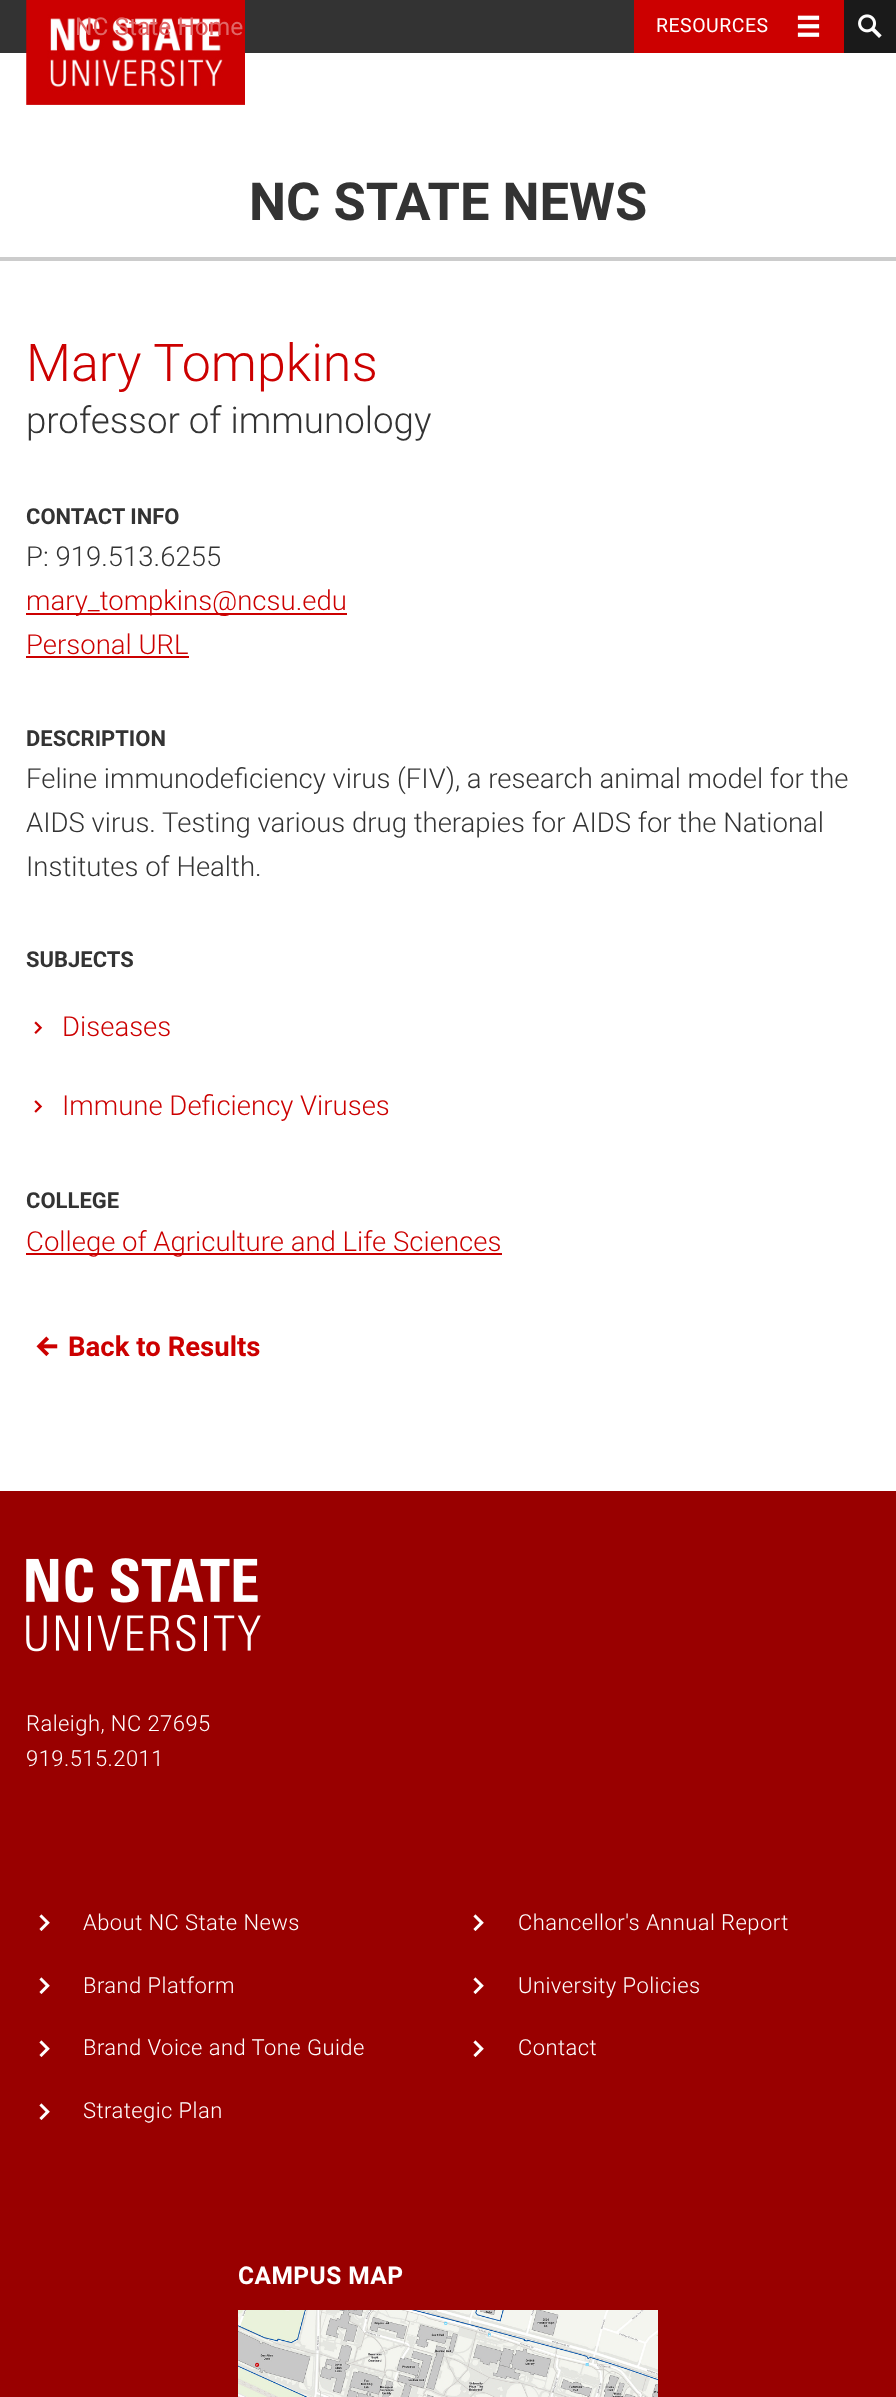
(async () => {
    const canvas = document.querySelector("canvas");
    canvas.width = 896;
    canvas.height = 2397;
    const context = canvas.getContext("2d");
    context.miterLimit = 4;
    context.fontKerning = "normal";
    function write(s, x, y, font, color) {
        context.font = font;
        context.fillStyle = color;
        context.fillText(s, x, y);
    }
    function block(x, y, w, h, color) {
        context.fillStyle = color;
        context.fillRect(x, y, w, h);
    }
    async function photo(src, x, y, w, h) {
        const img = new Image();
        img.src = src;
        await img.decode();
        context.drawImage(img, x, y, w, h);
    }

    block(0, 0, 896, 2397, "rgb(255, 255, 255)");
    block(0, 0, 634, 53, "rgb(51, 51, 51)");
    await photo("media/1.png", 26, 0, 219, 105);
    write("NC State Home", 75, 35, "24.5px Roboto", "rgb(224, 103, 103)");
    block(634, 0, 210, 53, "rgb(204, 0, 0)");
    await photo("media/2.png", 797, 15, 23, 22);
    context.letterSpacing = "0.5px";
    write("RESOURCES", 656, 32, "19.5px Roboto", "rgb(255, 255, 255)");
    block(844, 0, 52, 53, "rgb(26, 26, 26)");
    await photo("media/3.png", 858, 14, 24, 24);
    context.letterSpacing = "0px";
    write("NC STATE NEWS", 249, 220, "bold 52.5px Roboto", "rgb(51, 51, 51)");
    block(0, 257, 896, 4, "rgb(204, 204, 204)");
    write("Mary Tompkins", 26, 381, "300 52px Roboto", "rgb(204, 0, 0)");
    write("professor of immunology", 26, 433, "300 36.75px Roboto", "rgb(51, 51, 51)");
    write("CONTACT INFO", 26, 524, "bold 22px Roboto", "rgb(51, 51, 51)");
    write("P: 919.513.6255", 26, 566, "300 27.55px Roboto", "rgb(51, 51, 51)");
    block(26, 613, 321, 2, "rgb(204, 0, 0)");
    write("mary_tompkins@ncsu.edu", 26, 610, "300 27.55px Roboto", "rgb(204, 0, 0)");
    write("Personal URL", 26, 654, "300 27.55px Roboto", "rgb(204, 0, 0)");
    block(26, 656, 163, 2, "rgb(204, 0, 0)");
    write("DESCRIPTION", 26, 746, "bold 22px Roboto", "rgb(51, 51, 51)");
    write("Feline immunodeficiency virus (FIV), a research animal model for the", 26, 788, "300 27.55px Roboto", "rgb(51, 51, 51)");
    write("AIDS virus. Testing various drug therapies for AIDS for the National", 26, 832, "300 27.55px Roboto", "rgb(51, 51, 51)");
    write("Institutes of Health.", 26, 876, "300 27.55px Roboto", "rgb(51, 51, 51)");
    write("SUBJECTS", 26, 967, "bold 22px Roboto", "rgb(51, 51, 51)");
    await photo("media/4.png", 34, 1021, 9, 13);
    write("Diseases", 62, 1036, "300 27.55px Roboto", "rgb(204, 0, 0)");
    await photo("media/5.png", 34, 1100, 9, 13);
    write("Immune Deficiency Viruses", 62, 1115, "300 27.55px Roboto", "rgb(204, 0, 0)");
    write("COLLEGE", 26, 1208, "bold 22px Roboto", "rgb(51, 51, 51)");
    block(26, 1253, 476, 2, "rgb(204, 0, 0)");
    write("College of Agriculture and Life Sciences", 26, 1251, "300 27.55px Roboto", "rgb(204, 0, 0)");
    await photo("media/6.png", 36, 1336, 22, 21);
    write("Back to Results", 68, 1356, "bold 27.55px Roboto", "rgb(204, 0, 0)");
    block(0, 1491, 896, 906, "rgb(153, 0, 0)");
    await photo("media/7.png", 26, 1558, 235, 94);
    context.letterSpacing = "0.45px";
    write("Raleigh, NC 27695", 26, 1731, "300 22px Roboto", "rgb(255, 255, 255)");
    write("919.515.2011", 26, 1766, "300 22px Roboto", "rgb(255, 255, 255)");
    await photo("media/8.png", 39, 1914, 11, 17);
    write("About NC State News", 83, 1930, "300 22px Roboto", "rgb(255, 255, 255)");
    await photo("media/8.png", 39, 1977, 11, 17);
    write("Brand Platform", 83, 1993, "300 22px Roboto", "rgb(255, 255, 255)");
    await photo("media/8.png", 39, 2040, 11, 17);
    write("Brand Voice and Tone Guide", 83, 2055, "300 22px Roboto", "rgb(255, 255, 255)");
    await photo("media/8.png", 39, 2103, 11, 17);
    write("Strategic Plan", 83, 2118, "300 22px Roboto", "rgb(255, 255, 255)");
    await photo("media/8.png", 473, 1914, 11, 17);
    write("Chancellor's Annual Report", 518, 1930, "300 22px Roboto", "rgb(255, 255, 255)");
    await photo("media/8.png", 473, 1977, 11, 17);
    write("University Policies", 518, 1993, "300 22px Roboto", "rgb(255, 255, 255)");
    await photo("media/8.png", 473, 2040, 11, 17);
    write("Contact", 518, 2055, "300 22px Roboto", "rgb(255, 255, 255)");
    write("CAMPUS MAP", 238, 2284, "bold 24.5px Roboto", "rgb(255, 255, 255)");
    await photo("media/9.png", 238, 2310, 420, 87);
})();
